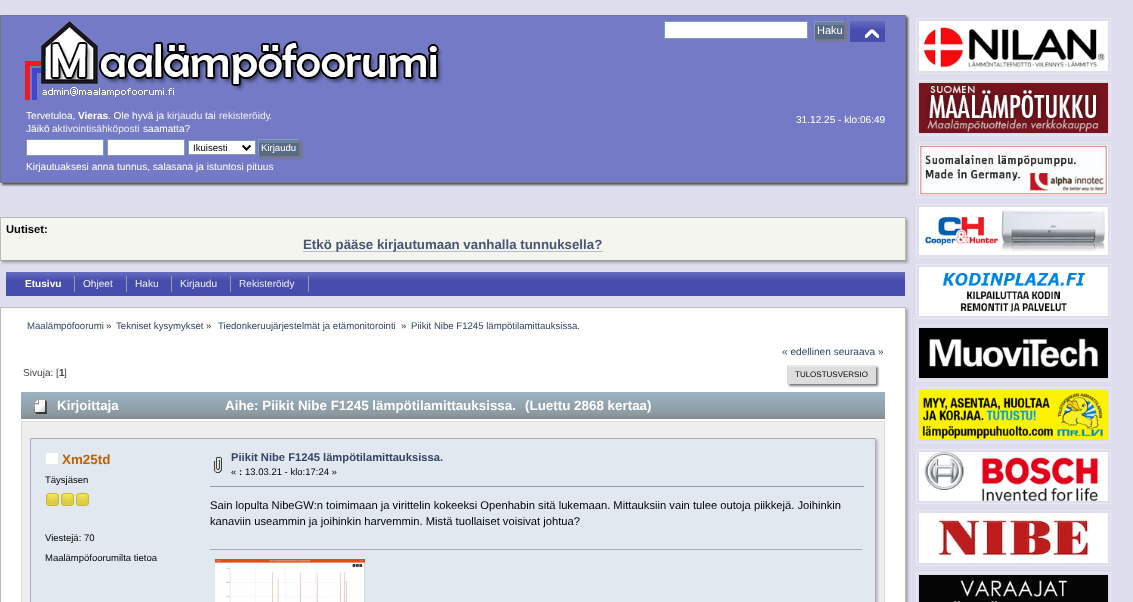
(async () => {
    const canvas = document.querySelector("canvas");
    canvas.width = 1133;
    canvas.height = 602;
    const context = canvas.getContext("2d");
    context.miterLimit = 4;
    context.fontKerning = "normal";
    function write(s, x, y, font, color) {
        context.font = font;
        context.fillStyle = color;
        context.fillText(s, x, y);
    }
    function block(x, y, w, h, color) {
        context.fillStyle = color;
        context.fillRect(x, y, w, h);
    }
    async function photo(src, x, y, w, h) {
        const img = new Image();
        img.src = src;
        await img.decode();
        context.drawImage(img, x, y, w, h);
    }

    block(0, 0, 1133, 602, "rgb(221, 221, 238)");
    context.fillStyle = "rgb(85, 85, 85)";
    context.filter = "blur(1px)";
    context.beginPath();
    context.rect(2, 17, 906, 168);
    context.fill();
    context.filter = "none";
    context.fillStyle = "rgb(116, 122, 197)";
    context.beginPath();
    context.rect(0.5, 15.5, 905, 167);
    context.fill();
    context.strokeStyle = "rgb(119, 119, 119)";
    context.stroke();
    await photo("media/1.png", 25, 21, 418, 79);
    context.fillStyle = "rgb(255, 255, 255)";
    context.beginPath();
    context.rect(664.5, 21.5, 143, 17);
    context.fill();
    context.strokeStyle = "rgb(127, 157, 185)";
    context.stroke();
    await photo("media/2.png", 850, 21, 35, 21);
    context.fillStyle = "rgb(120, 120, 120)";
    context.filter = "blur(1px)";
    context.beginPath();
    context.rect(816, 23, 31, 18);
    context.fill();
    context.filter = "none";
    block(815, 25, 29, 13, "rgb(89, 107, 132)");
    block(815, 22, 30, 3, "rgb(108, 129, 159)");
    block(814, 21, 31, 1, "rgb(127, 157, 185)");
    block(844, 21, 1, 18, "rgb(105, 123, 148)");
    block(814, 38, 31, 1, "rgb(89, 107, 132)");
    block(814, 21, 1, 18, "rgb(127, 157, 185)");
    write("Haku", 817, 34, "11px Liberation Sans", "rgb(255, 255, 255)");
    await photo("media/3.png", 865, 29, 14, 9);
    write("Tervetuloa,", 26, 119, "10.1px Liberation Sans", "rgb(255, 255, 255)");
    write("Vieras", 78, 119, "bold 10.1px Liberation Sans", "rgb(255, 255, 255)");
    write(". Ole hyvä ja", 108, 119, "10.1px Liberation Sans", "rgb(255, 255, 255)");
    write("kirjaudu", 167, 119, "10.1px Liberation Sans", "rgb(238, 238, 238)");
    write("tai", 205, 119, "10.1px Liberation Sans", "rgb(255, 255, 255)");
    write("rekisteröidy", 219, 119, "10.1px Liberation Sans", "rgb(238, 238, 238)");
    write(".", 269, 119, "10.1px Liberation Sans", "rgb(255, 255, 255)");
    write("Jäikö", 26, 132, "10.1px Liberation Sans", "rgb(255, 255, 255)");
    write("aktivointisähköposti", 52, 132, "10.1px Liberation Sans", "rgb(238, 238, 238)");
    write("saamatta?", 143, 132, "10.1px Liberation Sans", "rgb(255, 255, 255)");
    context.beginPath();
    context.rect(26.5, 139.5, 77, 16);
    context.fill();
    context.stroke();
    context.beginPath();
    context.rect(107.5, 139.5, 77, 16);
    context.fill();
    context.stroke();
    context.beginPath();
    context.rect(188.5, 140.5, 67, 14);
    context.fill();
    context.stroke();
    context.beginPath();
    context.moveTo(242.5, 145.5);
    context.lineTo(246.5, 149.5);
    context.lineTo(250.5, 145.5);
    context.strokeStyle = "rgb(0, 0, 0)";
    context.lineWidth = 2;
    context.stroke();
    write("Ikuisesti", 193, 151, "9.6px Liberation Sans", "rgb(0, 0, 0)");
    context.fillStyle = "rgb(120, 120, 120)";
    context.filter = "blur(1px)";
    context.beginPath();
    context.rect(260, 141, 42, 17);
    context.fill();
    context.filter = "none";
    block(259, 143, 40, 12, "rgb(89, 107, 132)");
    block(259, 140, 41, 3, "rgb(108, 129, 159)");
    block(258, 139, 42, 1, "rgb(127, 157, 185)");
    block(299, 139, 1, 17, "rgb(105, 123, 148)");
    block(258, 155, 42, 1, "rgb(89, 107, 132)");
    block(258, 139, 1, 17, "rgb(127, 157, 185)");
    write("Kirjaudu", 261, 151, "9.6px Liberation Sans", "rgb(255, 255, 255)");
    write("Kirjautuaksesi anna tunnus, salasana ja istuntosi pituus", 26, 170, "10.1px Liberation Sans", "rgb(255, 255, 255)");
    write("31.12.25 - klo:06:49", 796, 123, "10.1px Liberation Sans", "rgb(255, 255, 255)");
    context.fillStyle = "rgb(170, 170, 170)";
    context.filter = "blur(1px)";
    context.beginPath();
    context.rect(2, 219, 906, 44);
    context.fill();
    context.filter = "none";
    block(1, 218, 904, 42, "rgb(245, 245, 240)");
    block(0, 217, 906, 1, "rgb(187, 187, 187)");
    block(905, 217, 1, 44, "rgb(187, 187, 187)");
    block(0, 260, 906, 1, "rgb(153, 153, 153)");
    block(0, 217, 1, 44, "rgb(187, 187, 187)");
    write("Uutiset:", 6, 233, "bold 11.2px Liberation Sans", "rgb(0, 0, 0)");
    block(303, 251, 300, 1, "rgb(176, 188, 210)");
    write("Etkö pääse kirjautumaan vanhalla tunnuksella?", 303, 249, "bold 13.3px Liberation Sans", "rgb(70, 86, 116)");
    block(6, 280, 899, 16, "rgb(70, 77, 172)");
    await photo("media/4.png", 6, 272, 899, 8);
    block(74, 276, 1, 16, "rgb(153, 153, 170)");
    write("Etusivu", 25, 287, "bold 10.1px Liberation Sans", "rgb(255, 255, 255)");
    block(126, 276, 1, 16, "rgb(153, 153, 170)");
    write("Ohjeet", 83, 287, "10.1px Liberation Sans", "rgb(238, 238, 238)");
    block(171, 276, 1, 16, "rgb(153, 153, 170)");
    write("Haku", 135, 287, "10.1px Liberation Sans", "rgb(238, 238, 238)");
    block(230, 276, 1, 16, "rgb(153, 153, 170)");
    write("Kirjaudu", 180, 287, "10.1px Liberation Sans", "rgb(238, 238, 238)");
    block(308, 276, 1, 16, "rgb(153, 153, 170)");
    write("Rekisteröidy", 239, 287, "10.1px Liberation Sans", "rgb(238, 238, 238)");
    context.fillStyle = "rgb(170, 170, 170)";
    context.filter = "blur(1px)";
    context.beginPath();
    context.rect(2, 309, 906, 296);
    context.fill();
    context.filter = "none";
    block(1, 308, 904, 294, "rgb(255, 255, 255)");
    block(0, 307, 906, 1, "rgb(187, 187, 187)");
    block(905, 307, 1, 295, "rgb(187, 187, 187)");
    block(0, 307, 1, 295, "rgb(187, 187, 187)");
    write("Maalämpöfoorumi", 27, 329, "9.6px Liberation Sans", "rgb(51, 68, 102)");
    write("»", 106, 329, "9.6px Liberation Sans", "rgb(68, 68, 68)");
    write("Tekniset kysymykset", 116, 329, "9.6px Liberation Sans", "rgb(51, 68, 102)");
    write("»", 206, 329, "9.6px Liberation Sans", "rgb(68, 68, 68)");
    write("Tiedonkeruujärjestelmät ja etämonitorointi", 218, 329, "9.6px Liberation Sans", "rgb(51, 68, 102)");
    write("»", 401, 329, "9.6px Liberation Sans", "rgb(68, 68, 68)");
    write("Piikit Nibe F1245 lämpötilamittauksissa.", 411, 329, "9.6px Liberation Sans", "rgb(51, 68, 102)");
    write("« edellinen seuraava »", 782, 355, "10.1px Liberation Sans", "rgb(51, 68, 102)");
    write("Sivuja: [", 23, 376, "10.1px Liberation Sans", "rgb(68, 68, 68)");
    write("1", 59, 376, "bold 10.1px Liberation Sans", "rgb(68, 68, 68)");
    write("]", 64, 376, "10.1px Liberation Sans", "rgb(68, 68, 68)");
    context.fillStyle = "rgb(120, 120, 120)";
    context.filter = "blur(1px)";
    context.beginPath();
    context.rect(789, 367, 89, 19);
    context.fill();
    context.filter = "none";
    block(787, 365, 89, 2, "rgb(232, 232, 232)");
    block(787, 367, 89, 17, "rgb(221, 221, 221)");
    write("TULOSTUSVERSIO", 795, 377, "8px Liberation Sans", "rgb(0, 0, 0)");
    await photo("media/5.png", 21, 392, 864, 27);
    await photo("media/6.png", 34, 399, 13, 15);
    write("Kirjoittaja", 57, 410, "bold 13.4px Liberation Sans", "rgb(255, 255, 255)");
    write("Aihe: Piikit Nibe F1245 lämpötilamittauksissa.", 225, 410, "bold 13.4px Liberation Sans", "rgb(255, 255, 255)");
    write("(Luettu 2868 kertaa)", 525, 410, "bold 13.4px Liberation Sans", "rgb(255, 255, 255)");
    context.fillStyle = "rgb(238, 238, 238)";
    context.beginPath();
    context.rect(21.5, 421.5, 863, 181);
    context.fill();
    context.strokeStyle = "rgb(221, 221, 221)";
    context.lineWidth = 1;
    context.stroke();
    context.fillStyle = "rgb(187, 187, 204)";
    context.filter = "blur(1px)";
    context.beginPath();
    context.rect(32, 440, 846, 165);
    context.fill();
    context.filter = "none";
    context.fillStyle = "rgb(226, 232, 240)";
    context.beginPath();
    context.rect(30.5, 438.5, 845, 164);
    context.fill();
    context.strokeStyle = "rgb(170, 170, 187)";
    context.stroke();
    block(46, 453, 12, 11, "rgb(255, 255, 255)");
    write("Xm25td", 62, 464, "bold 13.4px Liberation Sans", "rgb(192, 96, 2)");
    write("Täysjäsen", 45, 483, "9.5px Liberation Sans", "rgb(0, 0, 0)");
    await photo("media/7.png", 46, 493, 13, 13);
    await photo("media/7.png", 61, 493, 13, 13);
    await photo("media/7.png", 76, 493, 13, 13);
    write("Viestejä: 70", 45, 541, "9.5px Liberation Sans", "rgb(0, 0, 0)");
    write("Maalämpöfoorumilta tietoa", 45, 561, "9.5px Liberation Sans", "rgb(0, 0, 0)");
    await photo("media/8.png", 213, 456, 9, 17);
    write("Piikit Nibe F1245 lämpötilamittauksissa.", 231, 461, "bold 11.2px Liberation Sans", "rgb(51, 68, 102)");
    write("«", 231, 475, "9.5px Liberation Sans", "rgb(0, 0, 0)");
    write(":", 239, 475, "bold 9.5px Liberation Sans", "rgb(0, 0, 0)");
    write("13.03.21 - klo:17:24 »", 245, 475, "9.5px Liberation Sans", "rgb(0, 0, 0)");
    block(210, 486, 654, 1, "rgb(153, 153, 170)");
    write("Sain lopulta NibeGW:n toimimaan ja virittelin kokeeksi Openhabin sitä lukemaan. Mittauksiin vain tulee outoja piikkejä. Joihinkin", 210, 509, "11.2px Liberation Sans", "rgb(0, 0, 0)");
    write("kanaviin useammin ja joihinkin harvemmin. Mistä tuollaiset voisivat johtua?", 210, 525, "11.2px Liberation Sans", "rgb(0, 0, 0)");
    block(210, 549, 652, 1, "rgb(170, 170, 170)");
    await photo("media/9.png", 215, 559, 150, 43);
    context.strokeStyle = "rgb(234, 234, 234)";
    context.strokeRect(916.5, 18.5, 194, 55);
    await photo("media/10.png", 919, 21, 189, 50);
    context.strokeRect(916.5, 80.5, 194, 55);
    await photo("media/11.png", 919, 83, 189, 50);
    context.strokeRect(916.5, 142.5, 194, 55);
    await photo("media/12.png", 919, 145, 189, 50);
    context.strokeRect(916.5, 204.5, 194, 53);
    await photo("media/13.png", 919, 207, 189, 48);
    context.strokeRect(916.5, 264.5, 194, 54);
    await photo("media/14.png", 919, 267, 189, 49);
    context.strokeRect(916.5, 325.5, 194, 55);
    await photo("media/15.png", 919, 328, 189, 50);
    context.strokeRect(916.5, 387.5, 194, 55);
    await photo("media/16.png", 919, 390, 189, 50);
    context.strokeRect(916.5, 449.5, 194, 54);
    await photo("media/17.png", 919, 452, 189, 49);
    context.strokeRect(916.5, 510.5, 194, 55);
    await photo("media/18.png", 919, 513, 189, 50);
    context.strokeRect(916.5, 572.5, 194, 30);
    await photo("media/19.png", 919, 575, 189, 27);
})();
